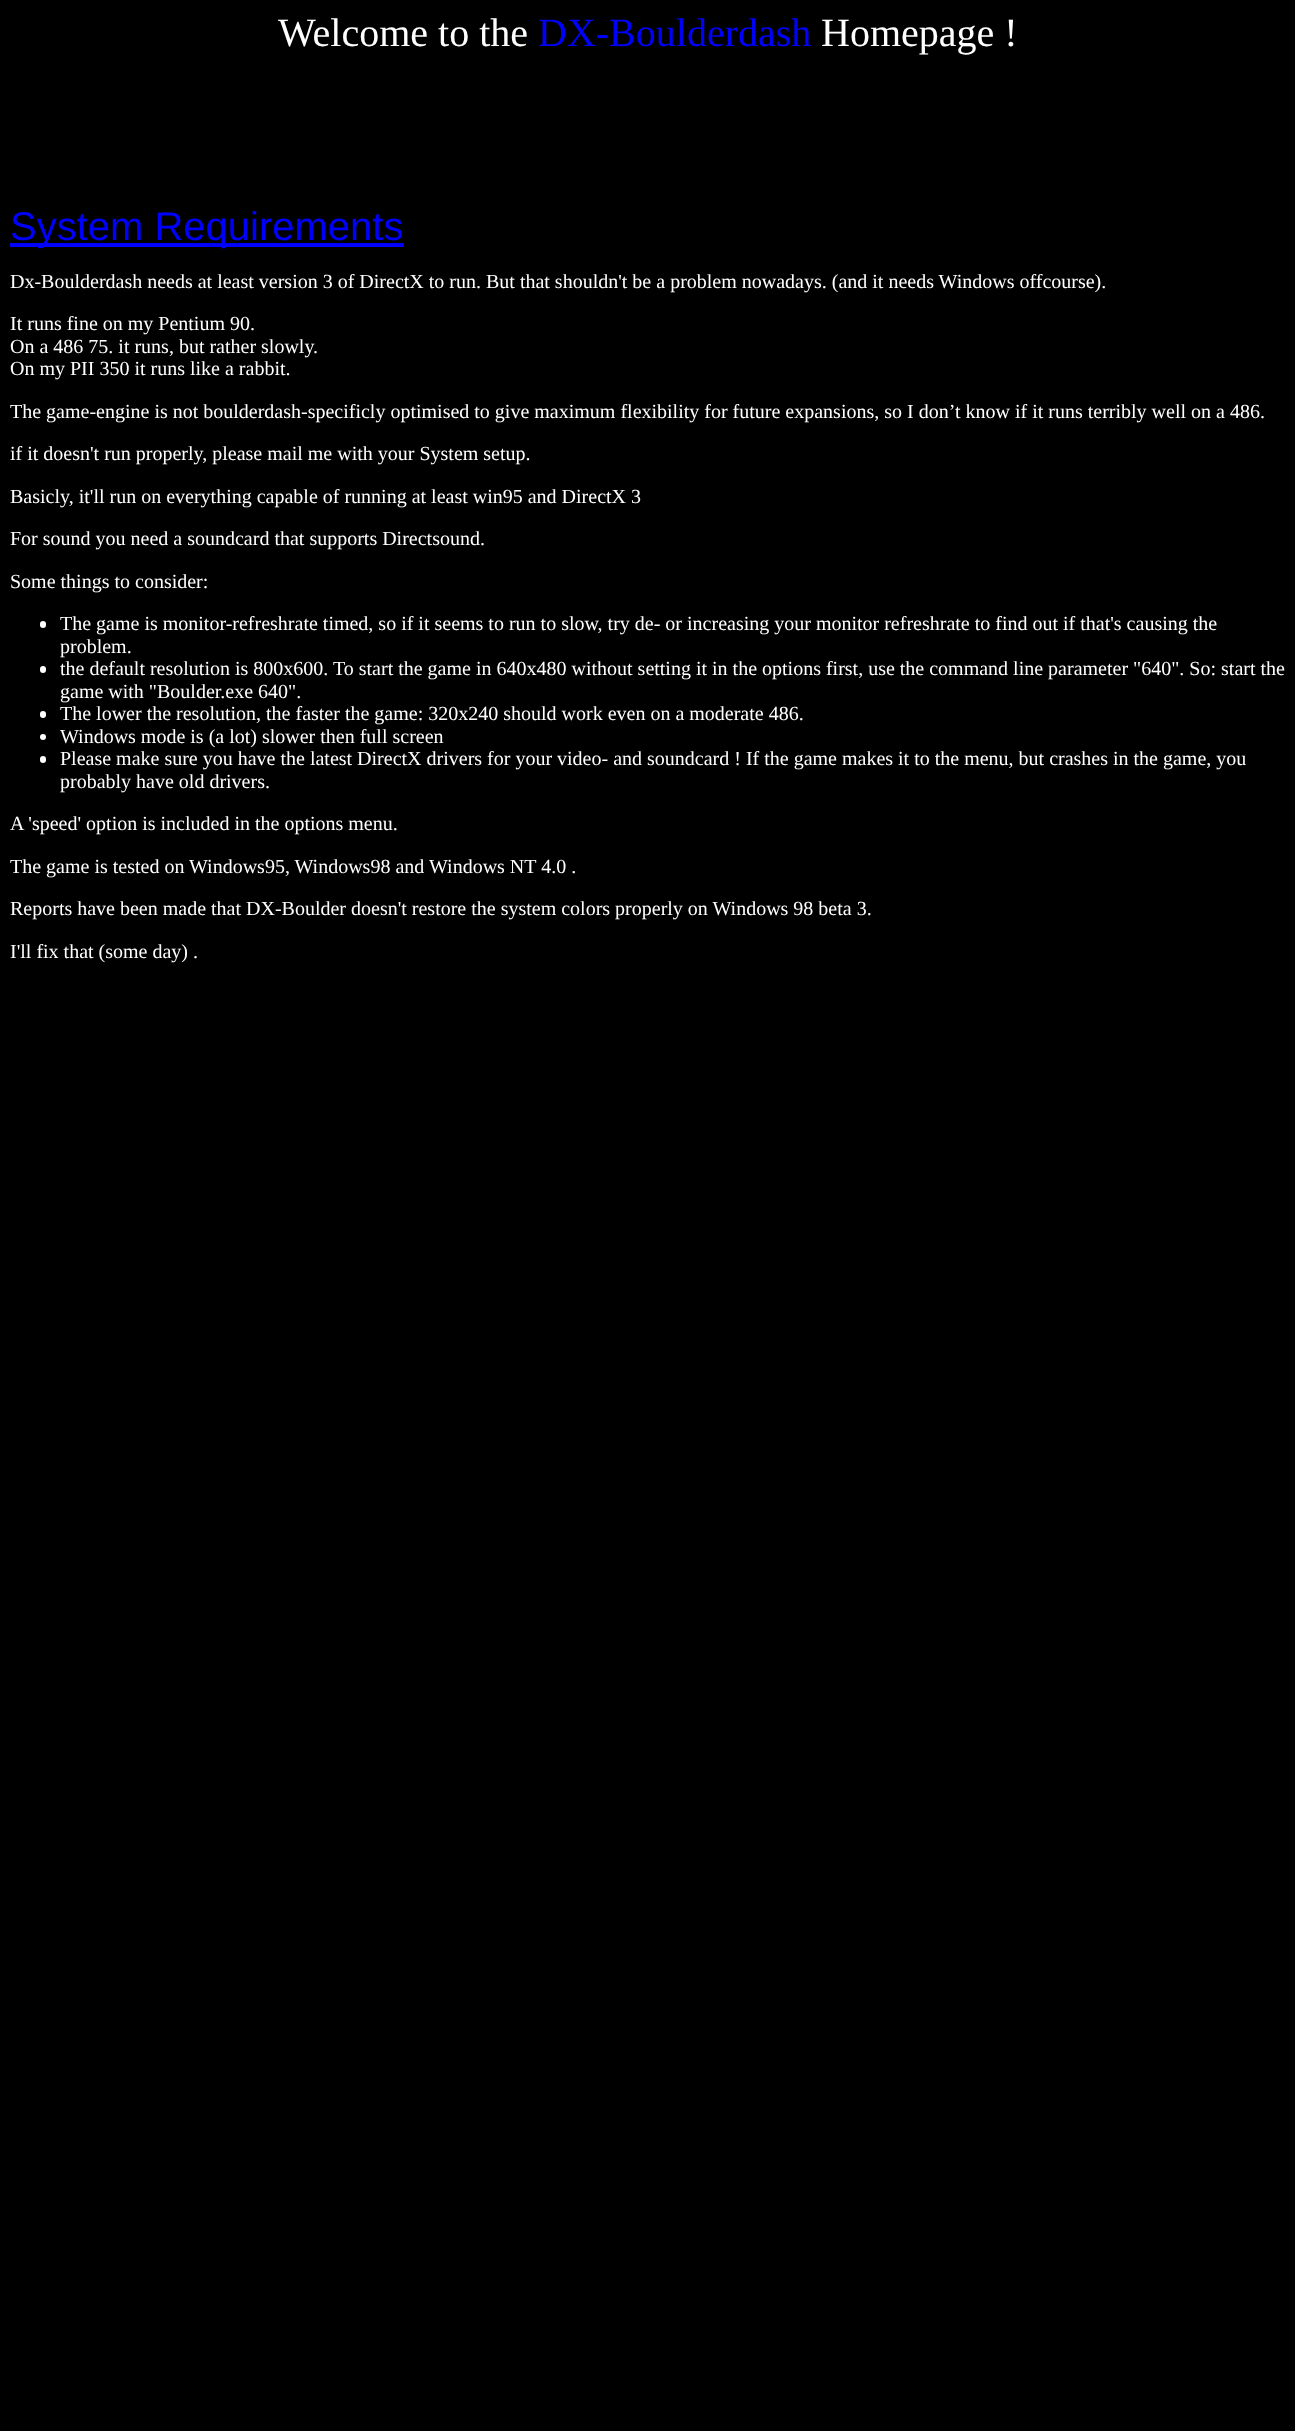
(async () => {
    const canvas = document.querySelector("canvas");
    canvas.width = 1295;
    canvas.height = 2431;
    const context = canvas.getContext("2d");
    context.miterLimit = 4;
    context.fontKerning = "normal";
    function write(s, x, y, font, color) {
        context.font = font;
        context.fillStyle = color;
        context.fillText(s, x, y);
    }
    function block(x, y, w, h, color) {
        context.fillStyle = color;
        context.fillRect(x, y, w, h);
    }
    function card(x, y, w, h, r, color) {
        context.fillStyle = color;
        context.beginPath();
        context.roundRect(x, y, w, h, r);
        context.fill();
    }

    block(0, 0, 1295, 2431, "rgb(0, 0, 0)");
    write("Welcome to the", 278, 46, "40px Liberation Serif", "rgb(255, 255, 255)");
    write("DX-Boulderdash", 538, 46, "40px Liberation Serif", "rgb(0, 0, 255)");
    write("Homepage !", 821, 46, "40px Liberation Serif", "rgb(255, 255, 255)");
    block(10, 243, 394, 4, "rgb(0, 0, 255)");
    write("System Requirements", 10, 240, "40px Liberation Sans", "rgb(0, 0, 255)");
    write("Dx-Boulderdash needs at least version 3 of DirectX to run. But that shouldn't be a problem nowadays. (and it needs Windows offcourse).", 10, 288, "20px Liberation Serif", "rgb(255, 255, 255)");
    write("It runs fine on my Pentium 90.", 10, 330, "20px Liberation Serif", "rgb(255, 255, 255)");
    write("On a 486 75. it runs, but rather slowly.", 10, 353, "20px Liberation Serif", "rgb(255, 255, 255)");
    write("On my PII 350 it runs like a rabbit.", 10, 375, "20px Liberation Serif", "rgb(255, 255, 255)");
    write("The game-engine is not boulderdash-specificly optimised to give maximum flexibility for future expansions, so I don’t know if it runs terribly well on a 486.", 10, 418, "20px Liberation Serif", "rgb(255, 255, 255)");
    write("if it doesn't run properly, please mail me with your System setup.", 10, 460, "20px Liberation Serif", "rgb(255, 255, 255)");
    write("Basicly, it'll run on everything capable of running at least win95 and DirectX 3", 10, 503, "20px Liberation Serif", "rgb(255, 255, 255)");
    write("For sound you need a soundcard that supports Directsound.", 10, 545, "20px Liberation Serif", "rgb(255, 255, 255)");
    write("Some things to consider:", 10, 588, "20px Liberation Serif", "rgb(255, 255, 255)");
    card(40, 621, 6, 7, 3, "rgb(255, 255, 255)");
    write("The game is monitor-refreshrate timed, so if it seems to run to slow, try de- or increasing your monitor refreshrate to find out if that's causing the", 60, 630, "20px Liberation Serif", "rgb(255, 255, 255)");
    write("problem.", 60, 653, "20px Liberation Serif", "rgb(255, 255, 255)");
    card(40, 666, 6, 7, 3, "rgb(255, 255, 255)");
    write("the default resolution is 800x600. To start the game in 640x480 without setting it in the options first, use the command line parameter \"640\". So: start the", 60, 675, "20px Liberation Serif", "rgb(255, 255, 255)");
    write("game with \"Boulder.exe 640\".", 60, 698, "20px Liberation Serif", "rgb(255, 255, 255)");
    card(40, 711, 6, 7, 3, "rgb(255, 255, 255)");
    write("The lower the resolution, the faster the game: 320x240 should work even on a moderate 486.", 60, 720, "20px Liberation Serif", "rgb(255, 255, 255)");
    context.beginPath();
    context.arc(43, 737, 3, 0, Math.PI * 2);
    context.fill();
    write("Windows mode is (a lot) slower then full screen", 60, 743, "20px Liberation Serif", "rgb(255, 255, 255)");
    card(40, 756, 6, 7, 3, "rgb(255, 255, 255)");
    write("Please make sure you have the latest DirectX drivers for your video- and soundcard ! If the game makes it to the menu, but crashes in the game, you", 60, 765, "20px Liberation Serif", "rgb(255, 255, 255)");
    write("probably have old drivers.", 60, 788, "20px Liberation Serif", "rgb(255, 255, 255)");
    write("A 'speed' option is included in the options menu.", 10, 830, "20px Liberation Serif", "rgb(255, 255, 255)");
    write("The game is tested on Windows95, Windows98 and", 10, 873, "20px Liberation Serif", "rgb(255, 255, 255)");
    write("Windows NT 4.0 .", 429, 873, "20px Liberation Serif", "rgb(255, 255, 255)");
    write("Reports have been made that DX-Boulder doesn't restore the system colors properly on Windows 98 beta 3.", 10, 915, "20px Liberation Serif", "rgb(255, 255, 255)");
    write("I'll fix that (some day) .", 10, 958, "20px Liberation Serif", "rgb(255, 255, 255)");
})();
